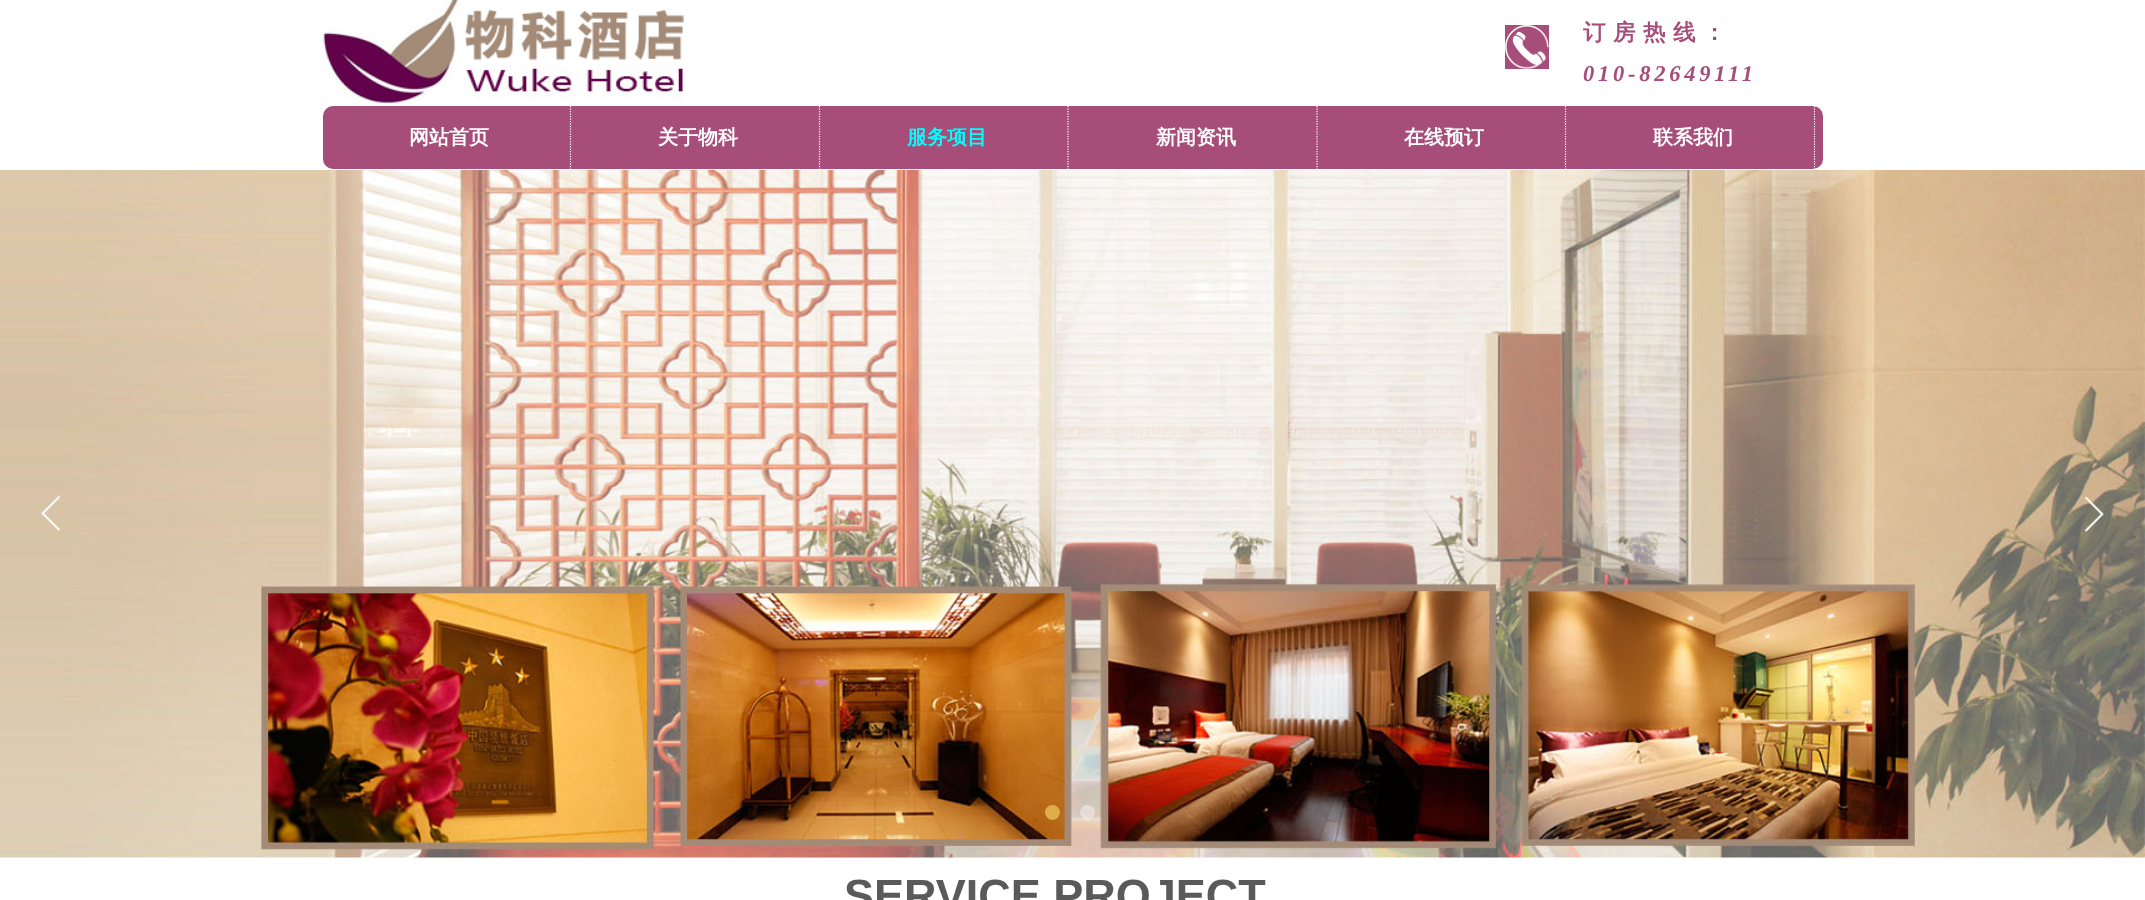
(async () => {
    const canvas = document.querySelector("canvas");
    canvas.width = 2145;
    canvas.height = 900;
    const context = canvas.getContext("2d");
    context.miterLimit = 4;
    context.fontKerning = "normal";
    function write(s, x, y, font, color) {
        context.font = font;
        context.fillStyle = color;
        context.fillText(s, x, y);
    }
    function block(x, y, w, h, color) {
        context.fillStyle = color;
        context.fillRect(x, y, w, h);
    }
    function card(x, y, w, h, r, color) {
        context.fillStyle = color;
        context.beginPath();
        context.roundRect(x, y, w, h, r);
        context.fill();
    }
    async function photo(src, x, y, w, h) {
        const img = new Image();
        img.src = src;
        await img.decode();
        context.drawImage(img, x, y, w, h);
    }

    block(0, 0, 2145, 900, "rgb(255, 255, 255)");
    await photo("media/1.png", 323, 0, 367, 104);
    block(1505, 25, 44, 44, "rgb(166, 77, 121)");
    await photo("media/2.png", 1505, 25, 44, 44);
    context.letterSpacing = "7.5px";
    write("订房热线：", 1583, 40, "bold 22.5px WenQuanYi Zen Hei", "rgb(166, 77, 121)");
    context.letterSpacing = "3.75px";
    write("010-82649111", 1583, 81, "italic bold 22.5px Liberation Serif", "rgb(166, 77, 121)");
    card(323, 106, 1500, 63, 10, "rgb(166, 77, 121)");
    context.beginPath();
    context.moveTo(570.5, 106);
    context.lineTo(570.5, 169);
    context.strokeStyle = "rgb(255, 255, 255)";
    context.lineWidth = 1.2;
    context.setLineDash([1.25, 1.25]);
    context.stroke();
    context.letterSpacing = "0px";
    write("网站首页", 409, 144, "bold 20px WenQuanYi Zen Hei", "rgb(255, 255, 255)");
    context.beginPath();
    context.moveTo(819.5, 106);
    context.lineTo(819.5, 169);
    context.stroke();
    write("关于物科", 658, 144, "bold 20px WenQuanYi Zen Hei", "rgb(255, 255, 255)");
    context.beginPath();
    context.moveTo(1068, 106);
    context.lineTo(1068, 169);
    context.stroke();
    write("服务项目", 907, 144, "bold 20px WenQuanYi Zen Hei", "rgb(0, 255, 255)");
    context.beginPath();
    context.moveTo(1317, 106);
    context.lineTo(1317, 169);
    context.stroke();
    write("新闻资讯", 1156, 144, "bold 20px WenQuanYi Zen Hei", "rgb(255, 255, 255)");
    context.beginPath();
    context.moveTo(1565.5, 106);
    context.lineTo(1565.5, 169);
    context.stroke();
    write("在线预订", 1404, 144, "bold 20px WenQuanYi Zen Hei", "rgb(255, 255, 255)");
    context.beginPath();
    context.moveTo(1814.5, 106);
    context.lineTo(1814.5, 169);
    context.stroke();
    write("联系我们", 1653, 144, "bold 20px WenQuanYi Zen Hei", "rgb(255, 255, 255)");
    await photo("media/3.png", 0, 170, 2145, 688);
    await photo("media/4.png", 41, 495, 20, 36);
    await photo("media/5.png", 2084, 496, 20, 36);
    context.fillStyle = "rgb(223, 173, 72)";
    context.beginPath();
    context.arc(1052.5, 812.5, 7.5, 0, Math.PI * 2);
    context.fill();
    context.fillStyle = "rgba(255, 255, 255, 0.4)";
    context.beginPath();
    context.arc(1087.5, 812.5, 7.5, 0, Math.PI * 2);
    context.fill();
    write("SERVICE PROJECT", 844, 911, "bold 45px Liberation Sans", "rgb(90, 90, 90)");
})();
